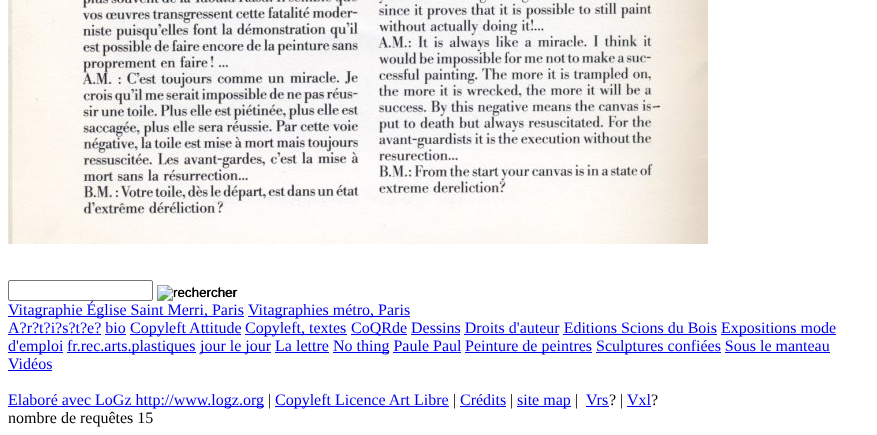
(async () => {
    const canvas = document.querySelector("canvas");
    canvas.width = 877;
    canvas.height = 435;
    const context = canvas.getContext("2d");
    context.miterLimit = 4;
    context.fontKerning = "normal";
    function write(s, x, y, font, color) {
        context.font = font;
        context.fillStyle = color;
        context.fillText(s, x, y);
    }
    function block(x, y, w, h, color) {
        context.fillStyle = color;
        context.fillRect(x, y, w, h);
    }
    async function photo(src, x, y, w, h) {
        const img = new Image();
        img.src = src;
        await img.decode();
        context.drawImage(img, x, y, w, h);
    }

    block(0, 0, 877, 435, "rgb(255, 255, 255)");
    await photo("media/1.png", 8, 0, 700, 244);
    context.beginPath();
    context.roundRect(8.5, 280.5, 144, 20, 1.5);
    context.strokeStyle = "rgb(118, 118, 118)";
    context.stroke();
    await photo("media/2.png", 157, 285, 80, 16);
    write("rechercher", 173, 297, "13.5px Liberation Sans", "rgb(0, 0, 0)");
    block(8, 316, 236, 1, "rgb(0, 0, 238)");
    write("Vitagraphie Église Saint Merri, Paris", 8, 315, "16px Liberation Serif", "rgb(0, 0, 238)");
    block(248, 316, 162, 1, "rgb(0, 0, 238)");
    write("Vitagraphies métro, Paris", 248, 315, "16px Liberation Serif", "rgb(0, 0, 238)");
    write("A?r?t?i?s?t?e? bio", 8, 333, "16px Liberation Serif", "rgb(0, 0, 238)");
    block(8, 334, 93, 1, "rgb(0, 0, 238)");
    block(130, 334, 111, 1, "rgb(0, 0, 238)");
    write("Copyleft Attitude", 130, 333, "16px Liberation Serif", "rgb(0, 0, 238)");
    block(245, 334, 102, 1, "rgb(0, 0, 238)");
    write("Copyleft, textes", 245, 333, "16px Liberation Serif", "rgb(0, 0, 238)");
    block(351, 334, 56, 1, "rgb(0, 0, 238)");
    write("CoQRde Dessins Droits d'auteur Editions Scions du Bois", 351, 333, "16px Liberation Serif", "rgb(0, 0, 238)");
    block(721, 334, 115, 1, "rgb(0, 0, 238)");
    write("Expositions mode", 721, 333, "16px Liberation Serif", "rgb(0, 0, 238)");
    block(105, 334, 21, 1, "rgb(0, 0, 238)");
    block(411, 334, 49, 1, "rgb(0, 0, 238)");
    block(464, 334, 95, 1, "rgb(0, 0, 238)");
    block(563, 334, 154, 1, "rgb(0, 0, 238)");
    block(8, 352, 55, 1, "rgb(0, 0, 238)");
    write("d'emploi", 8, 351, "16px Liberation Serif", "rgb(0, 0, 238)");
    block(67, 352, 129, 1, "rgb(0, 0, 238)");
    write("fr.rec.arts.plastiques", 67, 351, "16px Liberation Serif", "rgb(0, 0, 238)");
    block(200, 352, 71, 1, "rgb(0, 0, 238)");
    write("jour le jour La lettre", 200, 351, "16px Liberation Serif", "rgb(0, 0, 238)");
    block(333, 352, 56, 1, "rgb(0, 0, 238)");
    write("No thing Paule Paul", 333, 351, "16px Liberation Serif", "rgb(0, 0, 238)");
    block(465, 352, 127, 1, "rgb(0, 0, 238)");
    write("Peinture de peintres", 465, 351, "16px Liberation Serif", "rgb(0, 0, 238)");
    block(596, 352, 125, 1, "rgb(0, 0, 238)");
    write("Sculptures confiées Sous le manteau", 596, 351, "16px Liberation Serif", "rgb(0, 0, 238)");
    block(275, 352, 54, 1, "rgb(0, 0, 238)");
    block(393, 352, 68, 1, "rgb(0, 0, 238)");
    block(725, 352, 105, 1, "rgb(0, 0, 238)");
    write("Vidéos", 8, 369, "16px Liberation Serif", "rgb(0, 0, 238)");
    block(8, 370, 44, 1, "rgb(0, 0, 238)");
    block(8, 406, 256, 1, "rgb(0, 0, 238)");
    write("Elaboré avec LoGz http://www.logz.org", 8, 405, "16px Liberation Serif", "rgb(0, 0, 238)");
    write("|", 268, 405, "16px Liberation Serif", "rgb(0, 0, 0)");
    block(275, 406, 174, 1, "rgb(0, 0, 238)");
    write("Copyleft Licence Art Libre", 275, 405, "16px Liberation Serif", "rgb(0, 0, 238)");
    write("|", 453, 405, "16px Liberation Serif", "rgb(0, 0, 0)");
    write("Crédits", 460, 405, "16px Liberation Serif", "rgb(0, 0, 238)");
    block(460, 406, 46, 1, "rgb(0, 0, 238)");
    write("|", 510, 405, "16px Liberation Serif", "rgb(0, 0, 0)");
    block(517, 406, 54, 1, "rgb(0, 0, 238)");
    write("site map", 517, 405, "16px Liberation Serif", "rgb(0, 0, 238)");
    write("|", 575, 405, "16px Liberation Serif", "rgb(0, 0, 0)");
    write("Vrs", 586, 405, "16px Liberation Serif", "rgb(0, 0, 238)");
    block(586, 406, 23, 1, "rgb(0, 0, 238)");
    write("? |", 609, 405, "16px Liberation Serif", "rgb(0, 0, 0)");
    write("Vxl", 627, 405, "16px Liberation Serif", "rgb(0, 0, 238)");
    block(627, 406, 24, 1, "rgb(0, 0, 238)");
    write("?", 651, 405, "16px Liberation Serif", "rgb(0, 0, 0)");
    write("nombre de requêtes 15", 8, 423, "16px Liberation Serif", "rgb(0, 0, 0)");
})();
